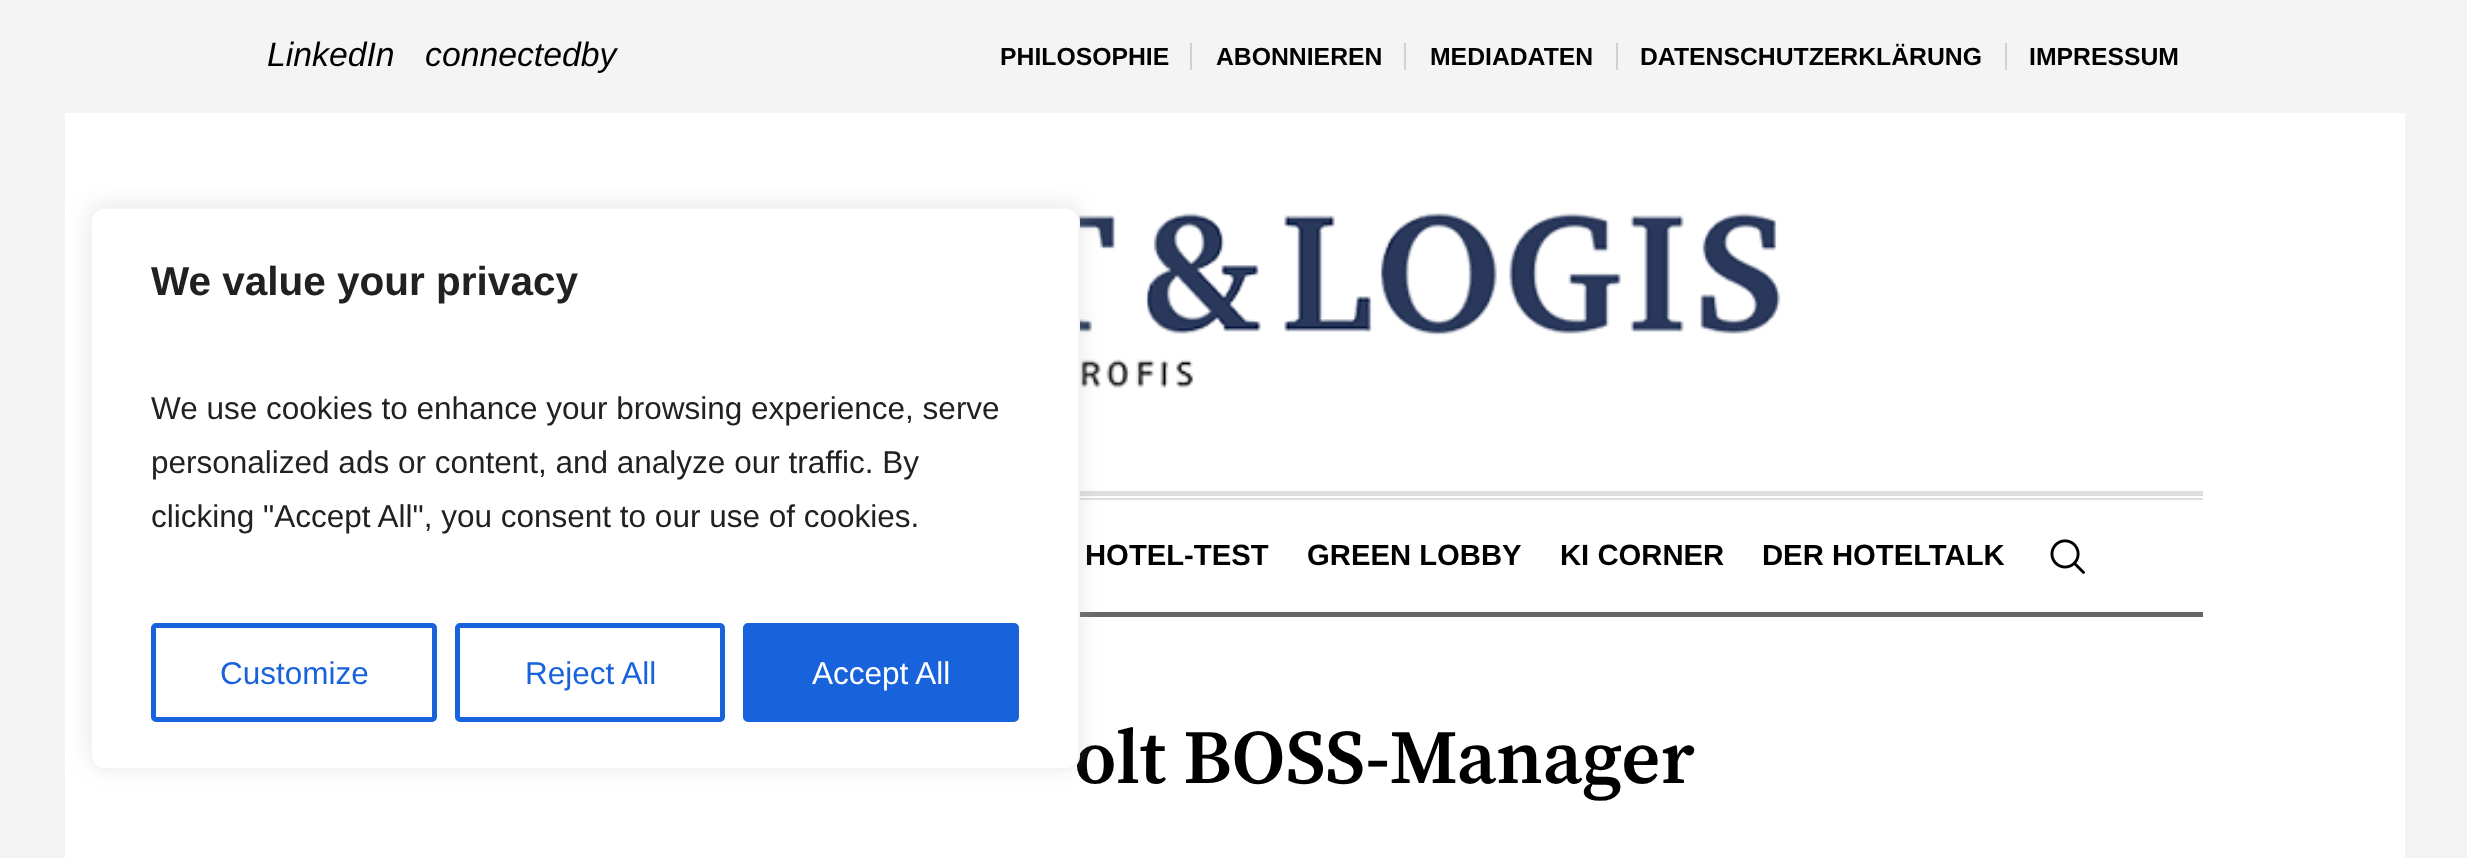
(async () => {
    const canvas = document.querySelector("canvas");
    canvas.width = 2467;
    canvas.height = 858;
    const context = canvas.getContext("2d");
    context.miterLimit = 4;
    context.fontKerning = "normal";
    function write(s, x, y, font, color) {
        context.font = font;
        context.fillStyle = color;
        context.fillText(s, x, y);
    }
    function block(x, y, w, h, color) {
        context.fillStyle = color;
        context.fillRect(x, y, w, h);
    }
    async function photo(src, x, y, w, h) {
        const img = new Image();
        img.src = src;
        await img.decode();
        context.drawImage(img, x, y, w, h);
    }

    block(0, 0, 2467, 858, "rgb(244, 244, 244)");
    write("LinkedIn", 267, 66, "italic 33.75px Liberation Sans", "rgb(0, 0, 0)");
    write("connectedby", 425, 66, "italic 33.75px Liberation Sans", "rgb(0, 0, 0)");
    write("PHILOSOPHIE", 1000, 65, "bold 24.75px Liberation Sans", "rgb(0, 0, 0)");
    block(1190, 43, 2, 27, "rgb(209, 209, 209)");
    write("ABONNIEREN", 1216, 65, "bold 24.75px Liberation Sans", "rgb(0, 0, 0)");
    block(1404, 43, 2, 27, "rgb(209, 209, 209)");
    write("MEDIADATEN", 1430, 65, "bold 24.75px Liberation Sans", "rgb(0, 0, 0)");
    block(1616, 43, 2, 27, "rgb(209, 209, 209)");
    write("DATENSCHUTZERKLÄRUNG", 1640, 65, "bold 24.75px Liberation Sans", "rgb(0, 0, 0)");
    block(2005, 43, 2, 27, "rgb(209, 209, 209)");
    write("IMPRESSUM", 2029, 65, "bold 24.75px Liberation Sans", "rgb(0, 0, 0)");
    block(65, 113, 2340, 745, "rgb(255, 255, 255)");
    await photo("media/1.png", 1078, 213, 703, 175);
    block(1080, 498, 1123, 2, "rgb(223, 223, 223)");
    block(1080, 491, 1123, 5, "rgb(223, 223, 223)");
    block(1080, 612, 1123, 5, "rgb(102, 102, 102)");
    write("HOTEL-TEST", 1085, 565, "bold 29.25px Liberation Sans", "rgb(0, 0, 0)");
    write("GREEN LOBBY", 1307, 565, "bold 29.25px Liberation Sans", "rgb(0, 0, 0)");
    write("KI CORNER", 1560, 565, "bold 29.25px Liberation Sans", "rgb(0, 0, 0)");
    write("DER HOTELTALK", 1762, 565, "bold 29.25px Liberation Sans", "rgb(0, 0, 0)");
    await photo("media/2.png", 2050, 539, 35, 35);
    write("olt BOSS-Manager", 1074, 783, "600 76.5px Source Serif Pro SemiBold", "rgb(0, 0, 0)");
    context.fillStyle = "rgba(172, 171, 171, 0.3)";
    context.filter = "blur(11px)";
    context.beginPath();
    context.roundRect(90, 205, 990, 562, 14);
    context.fill();
    context.filter = "none";
    context.fillStyle = "rgb(255, 255, 255)";
    context.beginPath();
    context.roundRect(91, 208, 988, 561, 13);
    context.fill();
    context.strokeStyle = "rgb(244, 244, 244)";
    context.lineWidth = 2;
    context.stroke();
    write("We value your privacy", 151, 295, "bold 40.5px Liberation Sans", "rgb(33, 33, 33)");
    write("We use cookies to enhance your browsing experience, serve", 151, 419, "31.5px Liberation Sans", "rgb(33, 33, 33)");
    write("personalized ads or content, and analyze our traffic. By", 151, 473, "31.5px Liberation Sans", "rgb(33, 33, 33)");
    write("clicking \"Accept All\", you consent to our use of cookies.", 151, 527, "31.5px Liberation Sans", "rgb(33, 33, 33)");
    context.beginPath();
    context.roundRect(153.5, 625.5, 281, 94, 2.5);
    context.strokeStyle = "rgb(24, 99, 220)";
    context.lineWidth = 5;
    context.stroke();
    write("Customize", 220, 684, "31.5px Liberation Sans", "rgb(24, 99, 220)");
    context.beginPath();
    context.roundRect(457.5, 625.5, 265, 94, 2.5);
    context.stroke();
    write("Reject All", 525, 684, "31.5px Liberation Sans", "rgb(24, 99, 220)");
    context.beginPath();
    context.roundRect(745.5, 625.5, 271, 94, 2.5);
    context.fill();
    context.stroke();
    write("Accept All", 812, 684, "31.5px Liberation Sans", "rgb(255, 255, 255)");
})();
